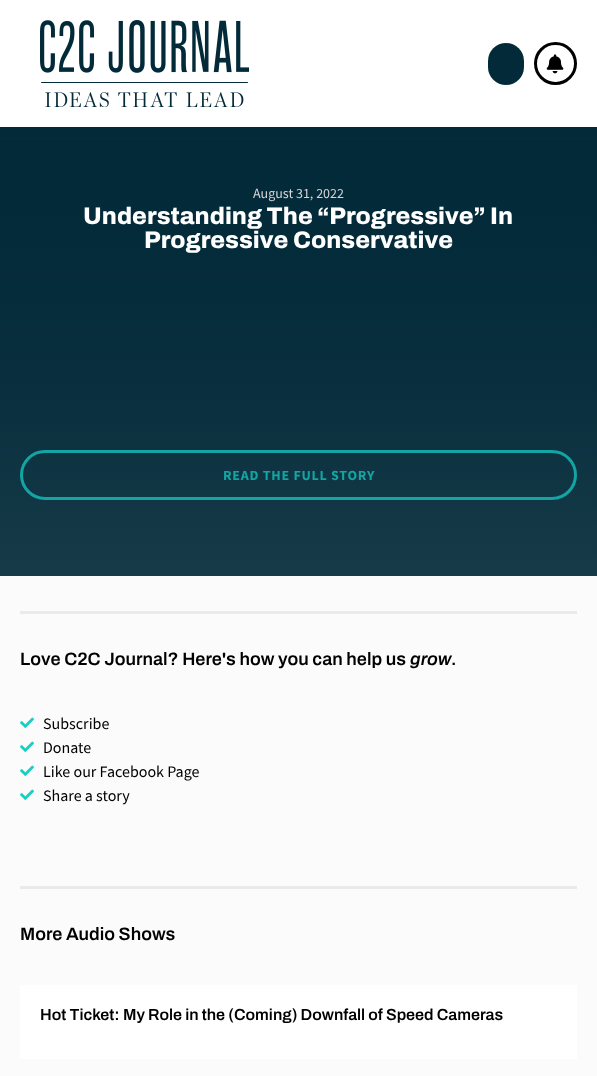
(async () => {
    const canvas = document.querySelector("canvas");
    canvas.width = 597;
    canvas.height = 1076;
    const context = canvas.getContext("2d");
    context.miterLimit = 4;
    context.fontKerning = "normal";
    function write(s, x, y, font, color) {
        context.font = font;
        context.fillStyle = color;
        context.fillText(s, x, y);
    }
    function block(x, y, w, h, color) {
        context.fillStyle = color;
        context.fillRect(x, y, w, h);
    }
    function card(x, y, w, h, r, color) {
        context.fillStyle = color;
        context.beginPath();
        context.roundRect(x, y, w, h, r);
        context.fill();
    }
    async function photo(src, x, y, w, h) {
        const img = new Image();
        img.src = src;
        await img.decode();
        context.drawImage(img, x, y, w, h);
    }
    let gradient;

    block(0, 0, 597, 1076, "rgb(255, 255, 255)");
    await photo("media/1.png", 40, 20, 209, 87);
    card(488, 43, 36, 42, 18, "rgb(3, 42, 57)");
    context.beginPath();
    context.arc(555.5, 63.5, 20, 0, Math.PI * 2);
    context.strokeStyle = "rgb(0, 0, 0)";
    context.lineWidth = 3;
    context.stroke();
    await photo("media/2.png", 546, 54, 18, 20);
    gradient = context.createLinearGradient(299, 127, 299, 576);
    gradient.addColorStop(0, "rgb(3, 42, 57)");
    gradient.addColorStop(1, "rgb(97, 121, 131)");
    context.fillStyle = gradient;
    context.fillRect(0, 140, 597, 436);
    gradient = context.createLinearGradient(299, 127, 299, 576);
    gradient.addColorStop(0, "rgb(3, 42, 57)");
    gradient.addColorStop(1, "rgba(3, 42, 57, 0.79)");
    context.fillStyle = gradient;
    context.fillRect(0, 127, 597, 449);
    write("August 31, 2022", 253, 198, "14px Source Sans Pro", "rgb(214, 214, 214)");
    write("Understanding The “Progressive” In", 83, 224, "800 24px Archivo", "rgb(255, 255, 255)");
    write("Progressive Conservative", 144, 248, "800 24px Archivo", "rgb(255, 255, 255)");
    context.beginPath();
    context.roundRect(21.5, 451.5, 554, 47, 23.5);
    context.strokeStyle = "rgb(19, 165, 164)";
    context.stroke();
    context.letterSpacing = "0.75px";
    write("READ THE FULL STORY", 223, 480, "bold 14px Source Sans Pro", "rgb(19, 165, 164)");
    block(0, 576, 597, 500, "rgb(251, 251, 251)");
    block(20, 611, 557, 3, "rgb(234, 234, 234)");
    context.letterSpacing = "0px";
    write("Love C2C Journal? Here's how you can help us", 20, 665, "600 18px Archivo", "rgb(0, 0, 0)");
    write("grow", 410, 665, "italic 600 18px Archivo", "rgb(0, 0, 0)");
    write(".", 451, 665, "600 18px Archivo", "rgb(0, 0, 0)");
    await photo("media/3.png", 20, 717, 14, 11);
    write("Subscribe", 43, 729, "16px Source Sans Pro", "rgb(0, 0, 0)");
    await photo("media/3.png", 20, 741, 14, 11);
    write("Donate", 43, 753, "16px Source Sans Pro", "rgb(0, 0, 0)");
    await photo("media/3.png", 20, 765, 14, 11);
    write("Like our Facebook Page", 43, 777, "16px Source Sans Pro", "rgb(0, 0, 0)");
    await photo("media/3.png", 20, 789, 14, 11);
    write("Share a story", 43, 801, "16px Source Sans Pro", "rgb(0, 0, 0)");
    block(20, 886, 557, 3, "rgb(234, 234, 234)");
    write("More Audio Shows", 20, 940, "600 18px Archivo", "rgb(0, 0, 0)");
    block(20, 985, 557, 74, "rgb(255, 255, 255)");
    write("Hot Ticket: My Role in the (Coming) Downfall of Speed Cameras", 40, 1020, "600 16px Archivo", "rgb(0, 0, 0)");
})();
